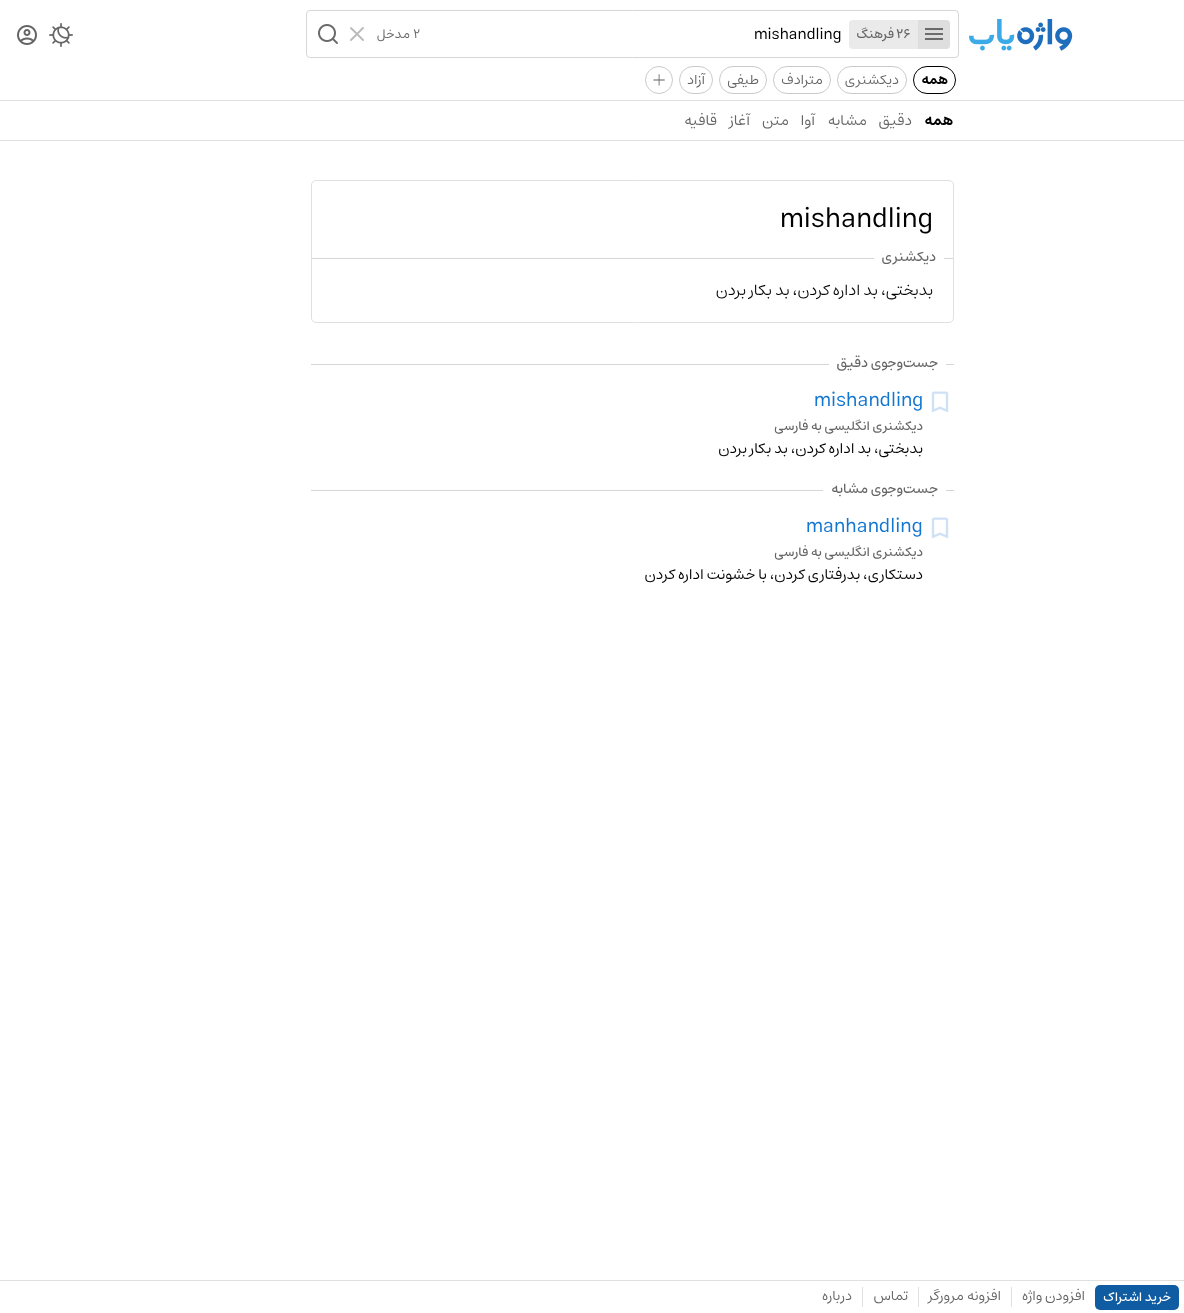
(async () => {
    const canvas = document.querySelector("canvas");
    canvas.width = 1184;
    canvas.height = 1313;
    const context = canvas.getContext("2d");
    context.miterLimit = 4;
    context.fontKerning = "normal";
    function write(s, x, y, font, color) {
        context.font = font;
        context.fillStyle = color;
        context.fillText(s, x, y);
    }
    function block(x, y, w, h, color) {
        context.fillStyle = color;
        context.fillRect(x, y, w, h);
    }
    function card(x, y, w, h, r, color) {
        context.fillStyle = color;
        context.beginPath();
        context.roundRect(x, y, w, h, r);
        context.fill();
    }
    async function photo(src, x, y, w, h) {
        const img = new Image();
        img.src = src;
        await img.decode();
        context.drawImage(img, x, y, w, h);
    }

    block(0, 0, 1184, 1313, "rgb(255, 255, 255)");
    block(0, 140, 1184, 1, "rgb(224, 224, 224)");
    await photo("media/1.png", 969, 19, 104, 32);
    context.beginPath();
    context.roundRect(306.5, 10.5, 652, 47, 3.5);
    context.strokeStyle = "rgb(214, 214, 214)";
    context.stroke();
    card(849, 20, 101, 29, 4, "rgb(234, 234, 234)");
    context.fillStyle = "rgb(222, 222, 222)";
    context.beginPath();
    context.roundRect(918, 20, 32, 29, [0, 4, 4, 0]);
    context.fill();
    await photo("media/2.png", 925, 28, 18, 12);
    write("26", 896, 38, "500 13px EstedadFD", "rgb(101, 101, 101)");
    context.direction = "rtl";
    write("فرهنگ", 894, 38, "500 13px EstedadFD", "rgb(101, 101, 101)");
    context.direction = "ltr";
    write("mishandling", 754, 39, "16px EstedadFD", "rgb(0, 0, 0)");
    write("2", 413, 38, "13px EstedadFD", "rgb(101, 101, 101)");
    context.direction = "rtl";
    write("مدخل", 410, 38, "13px EstedadFD", "rgb(101, 101, 101)");
    await photo("media/3.png", 350, 27, 14, 14);
    await photo("media/4.png", 318, 24, 20, 20);
    await photo("media/5.png", 49, 23, 24, 24);
    await photo("media/6.png", 17, 25, 20, 20);
    context.beginPath();
    context.roundRect(913.5, 66.5, 42, 27, 13.5);
    context.strokeStyle = "rgb(0, 0, 0)";
    context.stroke();
    write("همه", 948, 84, "bold 14px EstedadFD", "rgb(0, 0, 0)");
    context.beginPath();
    context.roundRect(837.5, 66.5, 69, 27, 13.5);
    context.strokeStyle = "rgb(202, 202, 202)";
    context.stroke();
    write("دیکشنری", 899, 84, "14px EstedadFD", "rgb(101, 101, 101)");
    context.beginPath();
    context.roundRect(773.5, 66.5, 57, 27, 13.5);
    context.stroke();
    write("مترادف", 823, 84, "14px EstedadFD", "rgb(101, 101, 101)");
    context.beginPath();
    context.roundRect(719.5, 66.5, 47, 27, 13.5);
    context.stroke();
    write("طیفی", 759, 84, "14px EstedadFD", "rgb(101, 101, 101)");
    context.beginPath();
    context.roundRect(679.5, 66.5, 33, 27, 13.5);
    context.stroke();
    write("آزاد", 705, 84, "14px EstedadFD", "rgb(101, 101, 101)");
    context.beginPath();
    context.arc(659, 80, 13.5, 0, Math.PI * 2);
    context.stroke();
    context.direction = "ltr";
    write("+", 651, 88, "100 28px EstedadFD", "rgb(101, 101, 101)");
    block(0, 100, 1184, 1, "rgb(224, 224, 224)");
    context.direction = "rtl";
    write("همه", 953, 125, "bold 15px EstedadFD", "rgb(0, 0, 0)");
    write("دقیق", 912, 125, "15px EstedadFD", "rgb(101, 101, 101)");
    write("مشابه", 867, 125, "15px EstedadFD", "rgb(101, 101, 101)");
    write("آوا", 815, 125, "15px EstedadFD", "rgb(101, 101, 101)");
    write("متن", 789, 125, "15px EstedadFD", "rgb(101, 101, 101)");
    write("آغاز", 750, 125, "15px EstedadFD", "rgb(101, 101, 101)");
    write("قافیه", 717, 125, "15px EstedadFD", "rgb(101, 101, 101)");
    context.beginPath();
    context.roundRect(311.5, 180.5, 642, 142, 4.5);
    context.strokeStyle = "rgb(224, 224, 224)";
    context.stroke();
    context.direction = "ltr";
    write("mishandling", 780, 227, "28px EstedadFD", "rgb(0, 0, 0)");
    block(944, 258, 9, 1, "rgb(214, 214, 214)");
    context.direction = "rtl";
    write("دیکشنری", 936, 261, "500 14px EstedadFD", "rgb(101, 101, 101)");
    block(312, 258, 562, 1, "rgb(214, 214, 214)");
    write("بدبختی، بد اداره کردن، بد بکار بردن", 933, 295, "300 16px EstedadFD", "rgb(0, 0, 0)");
    block(946, 364, 8, 1, "rgb(214, 214, 214)");
    write("جست‌وجوی دقیق", 938, 367, "500 14px EstedadFD", "rgb(101, 101, 101)");
    block(311, 364, 518, 1, "rgb(214, 214, 214)");
    await photo("media/7.png", 931, 391, 18, 22);
    context.direction = "ltr";
    write("mishandling", 814, 406, "20px EstedadFD", "rgb(18, 118, 209)");
    context.direction = "rtl";
    write("دیکشنری انگلیسی به فارسی", 923, 430, "500 13px EstedadFD", "rgb(101, 101, 101)");
    write("بدبختی، بد اداره کردن، بد بکار بردن", 923, 453, "15px EstedadFD", "rgb(0, 0, 0)");
    block(946, 490, 8, 1, "rgb(214, 214, 214)");
    write("جست‌وجوی مشابه", 938, 493, "500 14px EstedadFD", "rgb(101, 101, 101)");
    block(311, 490, 512, 1, "rgb(214, 214, 214)");
    await photo("media/7.png", 931, 517, 18, 22);
    context.direction = "ltr";
    write("manhandling", 806, 532, "20px EstedadFD", "rgb(18, 118, 209)");
    context.direction = "rtl";
    write("دیکشنری انگلیسی به فارسی", 923, 556, "500 13px EstedadFD", "rgb(101, 101, 101)");
    write("دستکاری، بدرفتاری کردن، با خشونت اداره کردن", 923, 579, "15px EstedadFD", "rgb(0, 0, 0)");
    block(0, 1280, 1184, 1, "rgb(224, 224, 224)");
    card(1095, 1285, 84, 25, 5, "rgb(15, 92, 162)");
    write("خرید اشتراک", 1171, 1301, "500 13px EstedadFD", "rgb(255, 255, 255)");
    write("افزودن واژه", 1085, 1300, "14px EstedadFD", "rgb(101, 101, 101)");
    block(1011, 1287, 1, 20, "rgb(224, 224, 224)");
    write("افزونه مرورگر", 1001, 1300, "14px EstedadFD", "rgb(101, 101, 101)");
    block(918, 1287, 1, 20, "rgb(224, 224, 224)");
    write("تماس", 908, 1300, "14px EstedadFD", "rgb(101, 101, 101)");
    block(862, 1287, 1, 20, "rgb(224, 224, 224)");
    write("درباره", 852, 1300, "14px EstedadFD", "rgb(101, 101, 101)");
})();
